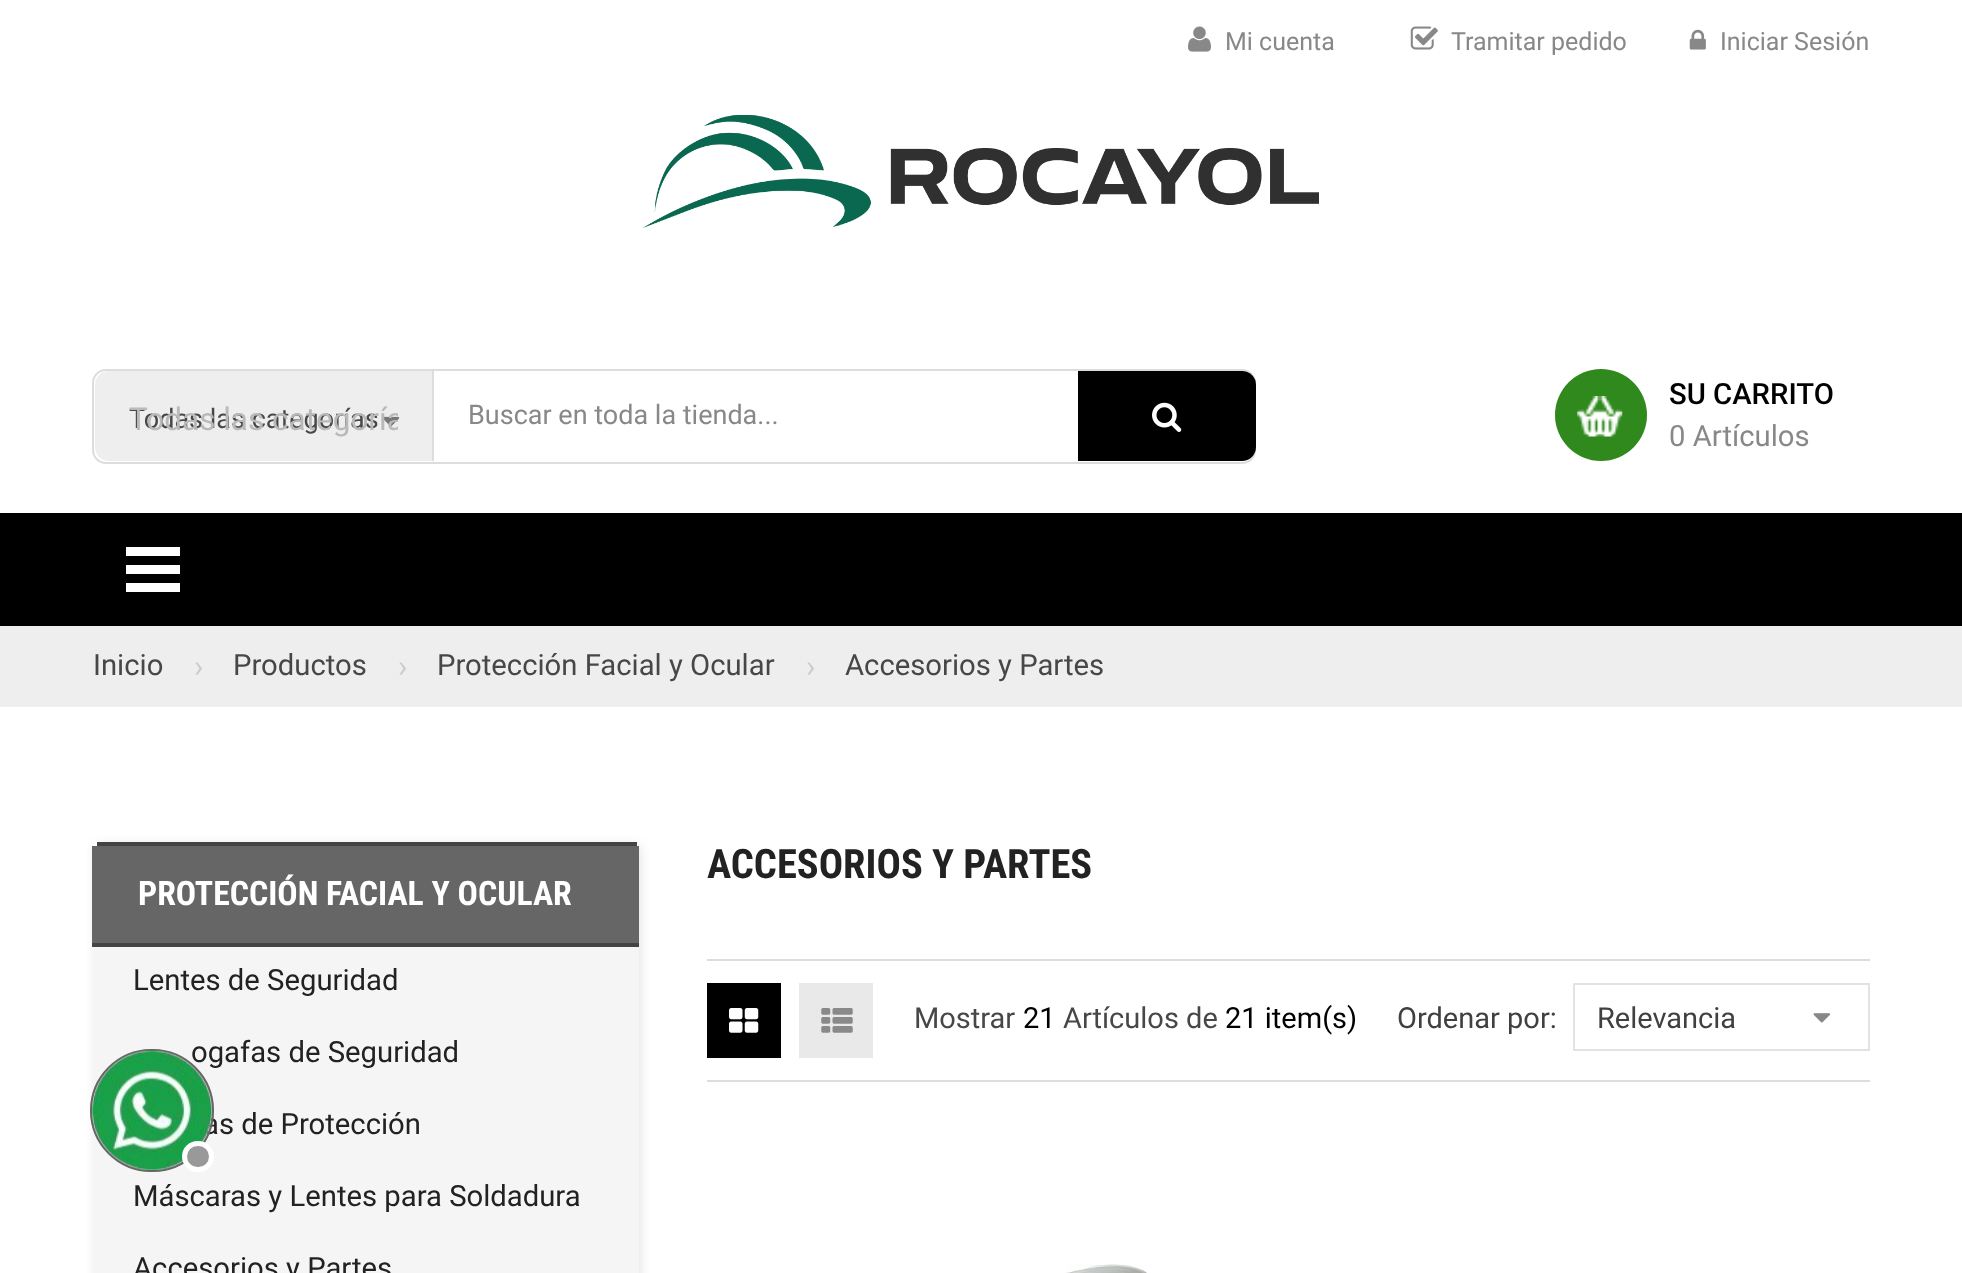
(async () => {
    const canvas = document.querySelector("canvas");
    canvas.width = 1962;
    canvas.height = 1273;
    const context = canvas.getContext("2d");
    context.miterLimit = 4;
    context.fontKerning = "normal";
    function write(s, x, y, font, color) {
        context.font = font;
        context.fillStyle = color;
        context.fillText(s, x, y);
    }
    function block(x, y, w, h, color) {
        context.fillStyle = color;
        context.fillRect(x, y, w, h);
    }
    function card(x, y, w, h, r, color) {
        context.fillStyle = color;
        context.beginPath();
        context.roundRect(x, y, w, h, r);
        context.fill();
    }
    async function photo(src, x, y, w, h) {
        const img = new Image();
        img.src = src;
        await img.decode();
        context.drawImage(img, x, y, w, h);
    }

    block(0, 0, 1962, 1273, "rgb(255, 255, 255)");
    await photo("media/1.png", 1188, 26, 23, 26);
    write("Mi cuenta", 1225, 50, "25px Roboto", "rgb(136, 136, 136)");
    await photo("media/2.png", 1410, 26, 28, 24);
    write("Tramitar pedido", 1451, 50, "25px Roboto", "rgb(136, 136, 136)");
    await photo("media/3.png", 1689, 29, 17, 21);
    write("Iniciar Sesión", 1720, 50, "25px Roboto", "rgb(136, 136, 136)");
    await photo("media/4.png", 643, 115, 676, 113);
    context.beginPath();
    context.roundRect(93, 370, 1162, 93, 13);
    context.strokeStyle = "rgb(221, 221, 221)";
    context.lineWidth = 2;
    context.stroke();
    context.fillStyle = "rgb(238, 238, 238)";
    context.beginPath();
    context.roundRect(95, 371, 339, 90, [14, 0, 0, 14]);
    context.fill();
    block(432, 371, 2, 90, "rgb(221, 221, 221)");
    write("Todas las categorías", 129, 428, "27px Roboto", "rgb(71, 71, 71)");
    await photo("media/5.png", 382, 416, 18, 11);
    context.save();
    context.beginPath();
    context.rect(128, 394, 270, 49);
    context.clip();
    write("Todas las categoría", 129, 430, "31.5px Roboto", "rgb(185, 185, 185)");
    context.restore();
    write("Buscar en toda la tienda...", 468, 424, "27px Roboto", "rgb(136, 136, 136)");
    context.fillStyle = "rgb(0, 0, 0)";
    context.beginPath();
    context.roundRect(1078, 371, 178, 90, [0, 14, 14, 0]);
    context.fill();
    await photo("media/6.png", 1152, 402, 30, 30);
    context.fillStyle = "rgb(47, 137, 28)";
    context.beginPath();
    context.arc(1601, 415, 46, 0, Math.PI * 2);
    context.fill();
    await photo("media/7.png", 1577, 396, 46, 41);
    write("SU CARRITO", 1669, 404, "500 29.25px Roboto", "rgb(0, 0, 0)");
    write("0 Artículos", 1669, 446, "29.25px Roboto", "rgb(136, 136, 136)");
    block(0, 513, 1962, 113, "rgb(0, 0, 0)");
    block(126, 547, 54, 9, "rgb(255, 255, 255)");
    block(126, 565, 54, 9, "rgb(255, 255, 255)");
    block(126, 583, 54, 9, "rgb(255, 255, 255)");
    block(0, 626, 1962, 81, "rgb(238, 238, 238)");
    write("Inicio", 93, 675, "29.25px Roboto", "rgb(71, 71, 71)");
    write("›", 194, 677, "31.5px Roboto", "rgb(204, 204, 204)");
    write("Productos", 233, 675, "29.25px Roboto", "rgb(71, 71, 71)");
    write("›", 398, 677, "31.5px Roboto", "rgb(204, 204, 204)");
    write("Protección Facial y Ocular", 437, 675, "29.25px Roboto", "rgb(71, 71, 71)");
    write("›", 806, 677, "31.5px Roboto", "rgb(204, 204, 204)");
    write("Accesorios y Partes", 845, 675, "29.25px Roboto", "rgb(71, 71, 71)");
    context.fillStyle = "rgba(0, 0, 0, 0.1)";
    context.filter = "blur(5.5px)";
    context.beginPath();
    context.roundRect(95, 844, 546, 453, 7);
    context.fill();
    context.filter = "none";
    card(92, 842, 547, 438, 7, "rgb(255, 255, 255)");
    block(97, 842, 540, 4, "rgb(68, 68, 68)");
    block(92, 846, 547, 97, "rgb(102, 102, 102)");
    block(92, 943, 547, 4, "rgb(68, 68, 68)");
    write("PROTECCIÓN FACIAL Y OCULAR", 138, 905, "bold 33.75px Roboto Condensed", "rgb(255, 255, 255)");
    block(92, 947, 547, 326, "rgb(245, 245, 245)");
    write("Lentes de Seguridad", 133, 990, "29.25px Roboto", "rgb(34, 34, 34)");
    write("ogafas de Seguridad", 191, 1062, "29.25px Roboto", "rgb(34, 34, 34)");
    write("as de Protección", 203, 1134, "29.25px Roboto", "rgb(34, 34, 34)");
    write("Máscaras y Lentes para Soldadura", 133, 1206, "29.25px Roboto", "rgb(34, 34, 34)");
    write("Accesorios y Partes", 133, 1278, "29.25px Roboto", "rgb(34, 34, 34)");
    write("ACCESORIOS Y PARTES", 707, 878, "bold 40.5px Roboto Condensed", "rgb(34, 34, 34)");
    block(707, 959, 1163, 2, "rgb(221, 221, 221)");
    block(707, 1080, 1163, 2, "rgb(221, 221, 221)");
    block(707, 983, 74, 75, "rgb(0, 0, 0)");
    await photo("media/8.png", 729, 1008, 30, 25);
    block(799, 983, 74, 75, "rgb(233, 233, 233)");
    await photo("media/9.png", 821, 1008, 32, 25);
    write("Mostrar", 914, 1028, "29px Roboto", "rgb(71, 71, 71)");
    write("21", 1023, 1028, "29px Roboto", "rgb(0, 0, 0)");
    write("Artículos de", 1063, 1028, "29px Roboto", "rgb(71, 71, 71)");
    write("21 item(s)", 1225, 1028, "29px Roboto", "rgb(0, 0, 0)");
    write("Ordenar por:", 1397, 1028, "29px Roboto", "rgb(64, 64, 64)");
    context.strokeStyle = "rgb(226, 226, 226)";
    context.strokeRect(1574, 984, 295, 66);
    write("Relevancia", 1597, 1028, "29px Roboto", "rgb(64, 64, 64)");
    await photo("media/10.png", 1813, 1013, 18, 10);
    await photo("media/11.png", 1065, 1264, 82, 9);
    card(90, 1049, 124, 123, 61.5, "rgba(153, 153, 153, 0.25)");
    card(90, 1049, 124, 123, 61.5, "rgba(153, 153, 153, 0.25)");
    context.beginPath();
    context.roundRect(91, 1050, 122, 121, 60.5);
    context.fill();
    context.strokeStyle = "rgb(102, 102, 102)";
    context.stroke();
    await photo("media/12.png", 92, 1050, 120, 121);
    context.fillStyle = "rgb(153, 153, 153)";
    context.beginPath();
    context.roundRect(184.5, 1143.5, 27, 26, 13);
    context.fill();
    context.strokeStyle = "rgb(255, 255, 255)";
    context.lineWidth = 5;
    context.stroke();
})();
